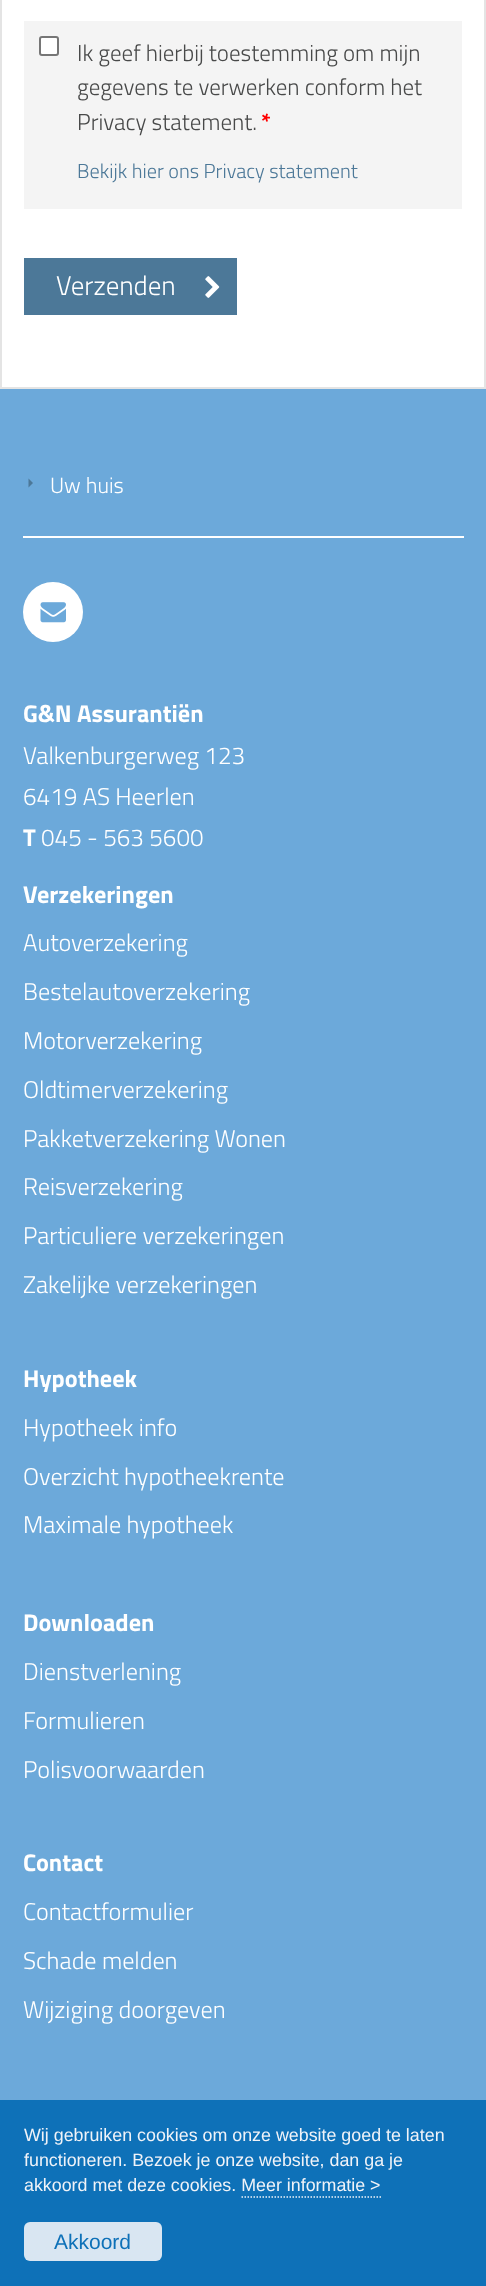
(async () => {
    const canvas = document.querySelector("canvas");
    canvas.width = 486;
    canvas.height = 2286;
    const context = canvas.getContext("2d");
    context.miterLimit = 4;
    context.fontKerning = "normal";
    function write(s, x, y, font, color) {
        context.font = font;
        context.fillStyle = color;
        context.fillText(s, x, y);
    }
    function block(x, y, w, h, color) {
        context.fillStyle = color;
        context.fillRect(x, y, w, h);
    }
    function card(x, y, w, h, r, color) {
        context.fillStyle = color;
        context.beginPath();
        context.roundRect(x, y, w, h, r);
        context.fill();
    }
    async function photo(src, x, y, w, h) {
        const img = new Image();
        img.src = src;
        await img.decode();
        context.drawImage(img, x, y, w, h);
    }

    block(0, 0, 486, 2286, "rgb(255, 255, 255)");
    context.strokeStyle = "rgb(228, 228, 228)";
    context.lineWidth = 2;
    context.strokeRect(1, -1, 484, 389);
    block(24, 21, 438, 188, "rgb(244, 244, 244)");
    context.fillStyle = "rgb(255, 255, 255)";
    context.beginPath();
    context.roundRect(40, 37, 18, 18, 2);
    context.fill();
    context.strokeStyle = "rgb(118, 118, 118)";
    context.stroke();
    write("Ik geef hierbij toestemming om mijn", 77, 61, "300 23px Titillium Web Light", "rgb(72, 73, 73)");
    write("gegevens te verwerken conform het", 77, 95, "300 23px Titillium Web Light", "rgb(72, 73, 73)");
    write("Privacy statement.", 77, 130, "300 23px Titillium Web Light", "rgb(72, 73, 73)");
    write("*", 261, 130, "bold 23px Titillium Web", "rgb(255, 0, 0)");
    write("Bekijk hier ons Privacy statement", 77, 178, "300 20.25px Titillium Web Light", "rgb(76, 120, 152)");
    block(24, 258, 213, 57, "rgb(76, 120, 152)");
    write("Verzenden", 56, 295, "300 27px Titillium Web Light", "rgb(255, 255, 255)");
    await photo("media/1.png", 205, 276, 15, 22);
    block(0, 389, 486, 1711, "rgb(108, 169, 218)");
    block(23, 536, 441, 2, "rgb(255, 255, 255)");
    context.fillStyle = "rgb(76, 120, 152)";
    context.beginPath();
    context.moveTo(28.5, 487.5);
    context.lineTo(28.5, 478.5);
    context.lineTo(33, 483);
    context.closePath();
    context.fill();
    write("Uw huis", 50, 493, "300 22px Titillium Web Light", "rgb(255, 255, 255)");
    context.beginPath();
    context.arc(53, 612, 30, 0, Math.PI * 2);
    context.fill();
    await photo("media/2.png", 40, 602, 26, 21);
    write("G&N Assurantiën", 23, 722, "bold 24.25px Titillium Web", "rgb(255, 255, 255)");
    write("Valkenburgerweg 123", 23, 764, "300 24.25px Titillium Web Light", "rgb(255, 255, 255)");
    write("6419 AS Heerlen", 23, 805, "300 24.25px Titillium Web Light", "rgb(255, 255, 255)");
    write("T", 23, 846, "bold 24.25px Titillium Web", "rgb(255, 255, 255)");
    write("045 - 563 5600", 41, 846, "300 24.25px Titillium Web Light", "rgb(255, 255, 255)");
    write("Verzekeringen", 23, 903, "bold 24.25px Titillium Web", "rgb(255, 255, 255)");
    write("Autoverzekering", 23, 951, "300 24.25px Titillium Web Light", "rgb(255, 255, 255)");
    write("Bestelautoverzekering", 23, 1000, "300 24.25px Titillium Web Light", "rgb(255, 255, 255)");
    write("Motorverzekering", 23, 1049, "300 24.25px Titillium Web Light", "rgb(255, 255, 255)");
    write("Oldtimerverzekering", 23, 1098, "300 24.25px Titillium Web Light", "rgb(255, 255, 255)");
    write("Pakketverzekering Wonen", 23, 1147, "300 24.25px Titillium Web Light", "rgb(255, 255, 255)");
    write("Reisverzekering", 23, 1195, "300 24.25px Titillium Web Light", "rgb(255, 255, 255)");
    write("Particuliere verzekeringen", 23, 1244, "300 24.25px Titillium Web Light", "rgb(255, 255, 255)");
    write("Zakelijke verzekeringen", 23, 1293, "300 24.25px Titillium Web Light", "rgb(255, 255, 255)");
    write("Hypotheek", 23, 1387, "bold 24.25px Titillium Web", "rgb(255, 255, 255)");
    write("Hypotheek info", 23, 1436, "300 24.25px Titillium Web Light", "rgb(255, 255, 255)");
    write("Overzicht hypotheekrente", 23, 1485, "300 24.25px Titillium Web Light", "rgb(255, 255, 255)");
    write("Maximale hypotheek", 23, 1533, "300 24.25px Titillium Web Light", "rgb(255, 255, 255)");
    write("Downloaden", 23, 1631, "bold 24.25px Titillium Web", "rgb(255, 255, 255)");
    write("Dienstverlening", 23, 1680, "300 24.25px Titillium Web Light", "rgb(255, 255, 255)");
    write("Formulieren", 23, 1729, "300 24.25px Titillium Web Light", "rgb(255, 255, 255)");
    write("Polisvoorwaarden", 23, 1778, "300 24.25px Titillium Web Light", "rgb(255, 255, 255)");
    write("Contact", 23, 1871, "bold 24.25px Titillium Web", "rgb(255, 255, 255)");
    write("Contactformulier", 23, 1920, "300 24.25px Titillium Web Light", "rgb(255, 255, 255)");
    write("Schade melden", 23, 1969, "300 24.25px Titillium Web Light", "rgb(255, 255, 255)");
    write("Wijziging doorgeven", 23, 2018, "300 24.25px Titillium Web Light", "rgb(255, 255, 255)");
    block(0, 2100, 486, 186, "rgb(14, 113, 184)");
    write("Wij gebruiken cookies om onze website goed te laten", 24, 2141, "17.85px Liberation Sans", "rgb(240, 243, 248)");
    write("functioneren. Bezoek je onze website, dan ga je", 24, 2166, "17.85px Liberation Sans", "rgb(240, 243, 248)");
    write("akkoord met deze cookies. Meer informatie >", 24, 2191, "17.85px Liberation Sans", "rgb(240, 243, 248)");
    context.beginPath();
    context.moveTo(241.5, 2197);
    context.lineTo(381, 2197);
    context.strokeStyle = "rgb(240, 243, 248)";
    context.lineWidth = 1.5;
    context.setLineDash([1.5, 1.5]);
    context.stroke();
    card(24, 2222, 138, 39, 6, "rgb(217, 230, 242)");
    write("Akkoord", 54, 2249, "21px Liberation Sans", "rgb(14, 113, 184)");
})();
